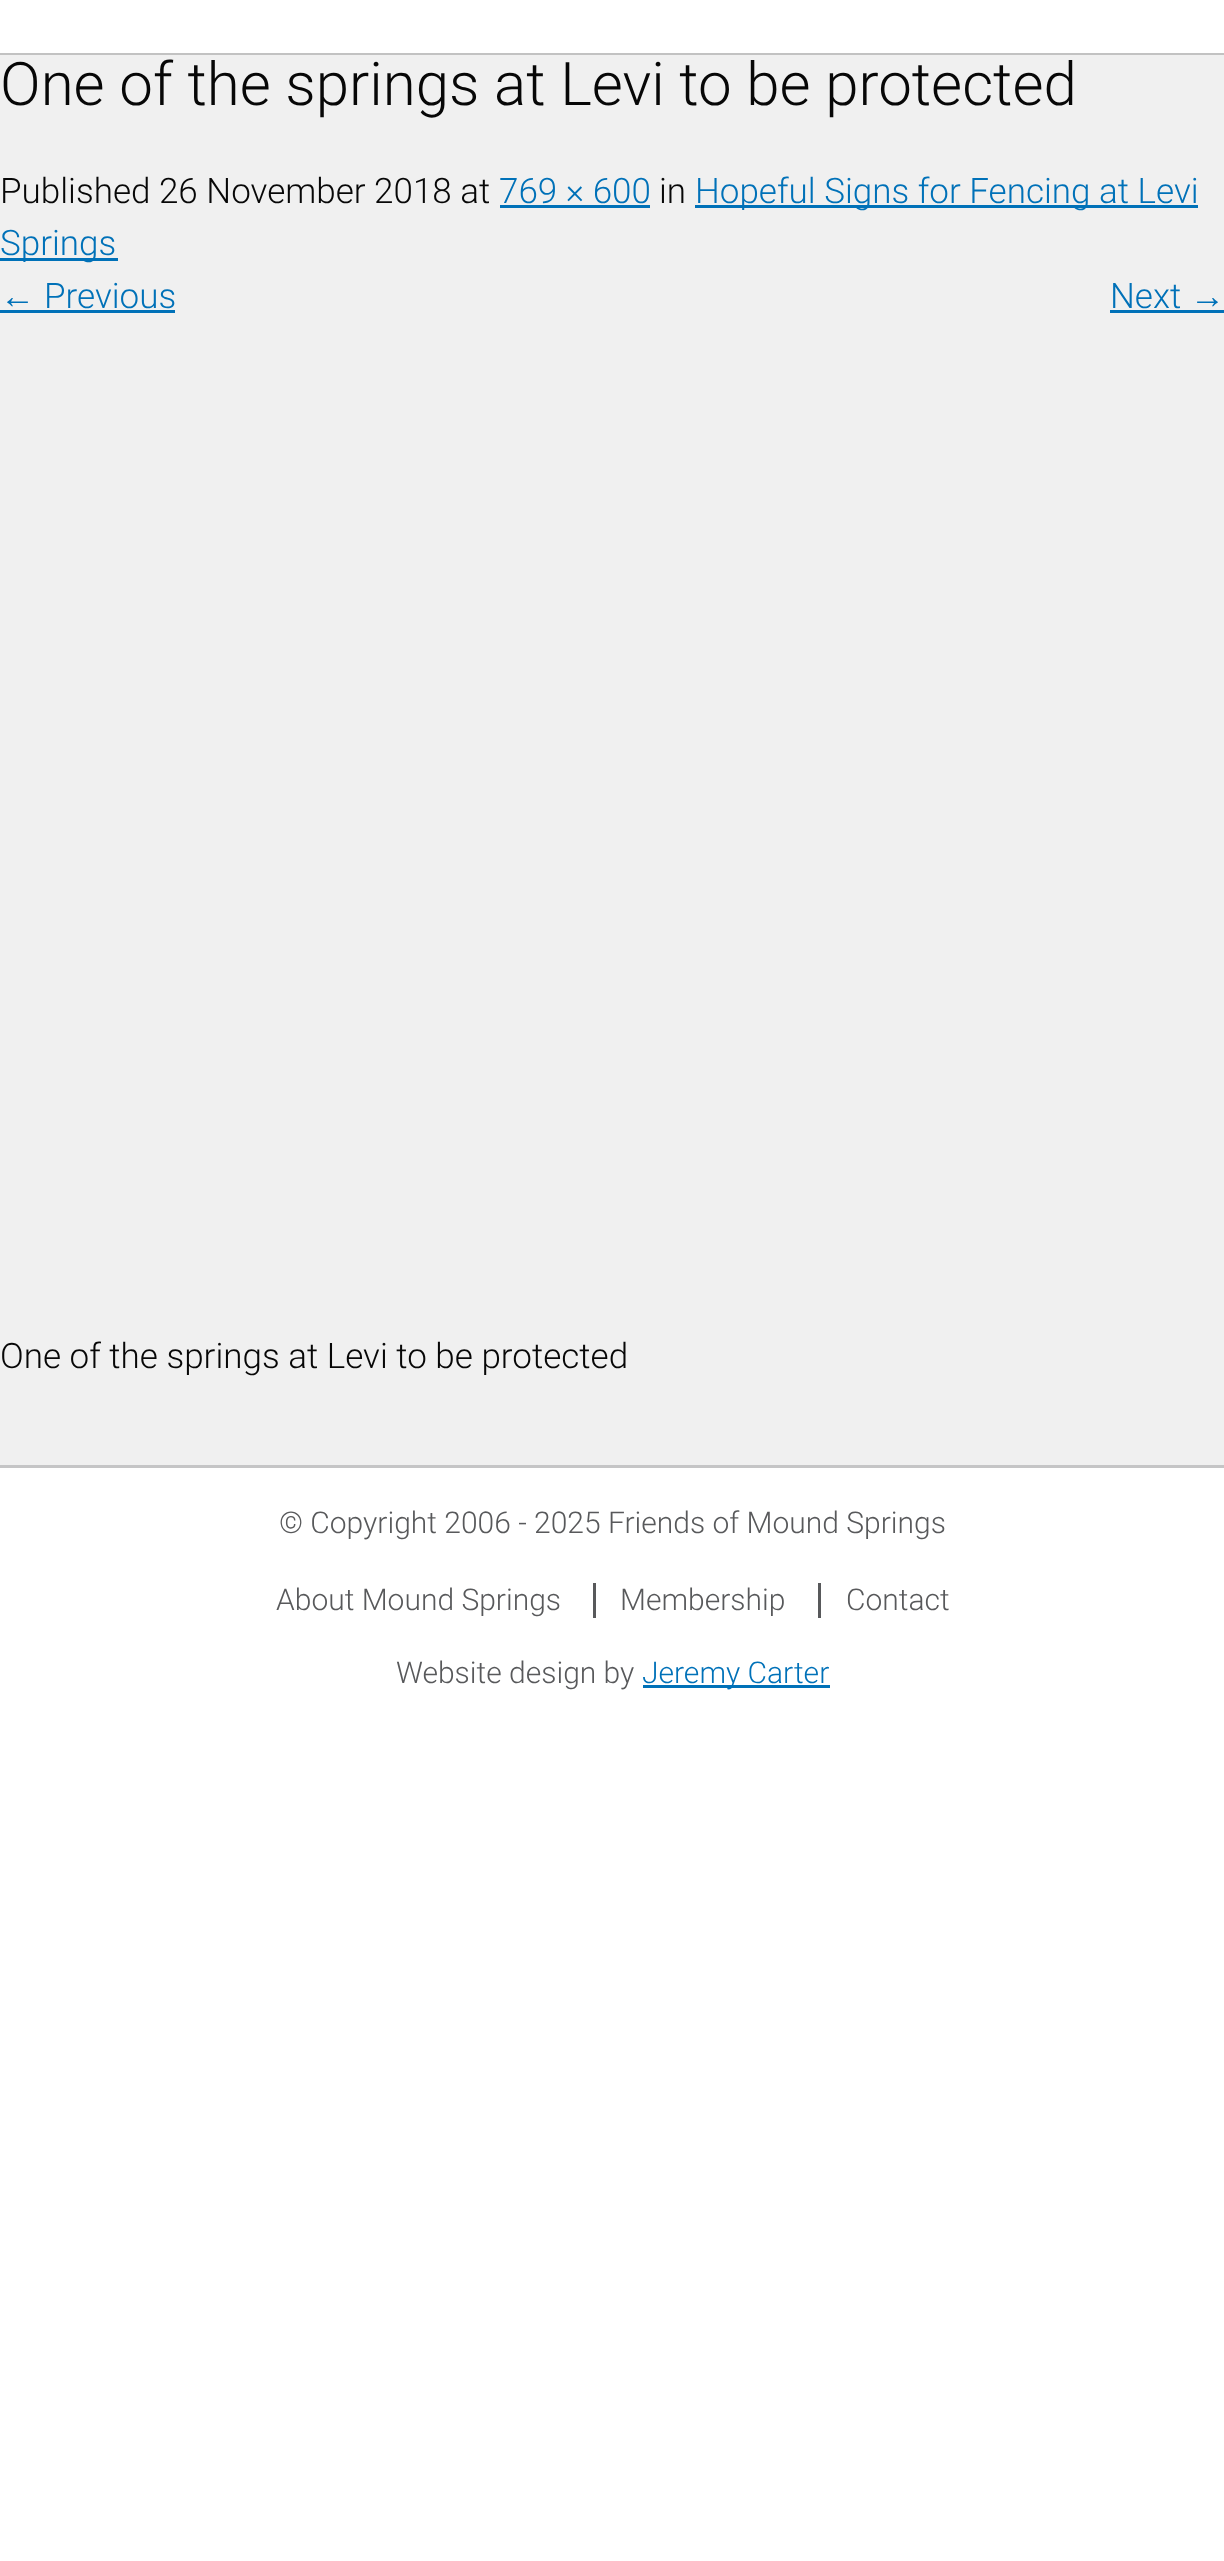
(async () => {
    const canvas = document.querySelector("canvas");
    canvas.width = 1224;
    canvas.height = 2561;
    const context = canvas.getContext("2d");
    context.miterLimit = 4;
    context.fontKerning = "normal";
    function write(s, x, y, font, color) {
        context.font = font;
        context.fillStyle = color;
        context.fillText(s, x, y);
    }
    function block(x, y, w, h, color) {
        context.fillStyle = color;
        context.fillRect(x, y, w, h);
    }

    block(0, 0, 1224, 2561, "rgb(255, 255, 255)");
    block(0, 53, 1224, 2, "rgb(194, 194, 194)");
    block(0, 55, 1224, 1410, "rgb(240, 240, 240)");
    write("One of the springs at Levi to be protected", 0, 105, "300 60px Roboto", "rgb(7, 7, 7)");
    write("Published 26 November 2018 at", 0, 203, "300 35px Roboto", "rgb(7, 7, 7)");
    write("769 × 600", 499, 203, "300 35px Roboto", "rgb(0, 113, 184)");
    block(500, 205, 150, 3, "rgb(0, 113, 184)");
    write("in", 659, 203, "300 35px Roboto", "rgb(7, 7, 7)");
    block(695, 205, 503, 3, "rgb(0, 113, 184)");
    write("Hopeful Signs for Fencing at Levi", 695, 203, "300 35px Roboto", "rgb(0, 113, 184)");
    block(0, 258, 118, 3, "rgb(0, 113, 184)");
    write("Springs", 0, 255, "300 35px Roboto", "rgb(0, 113, 184)");
    write("←", 0, 308, "35px Liberation Sans", "rgb(0, 113, 184)");
    block(0, 310, 175, 3, "rgb(0, 113, 184)");
    write("Previous", 44, 308, "300 35px Roboto", "rgb(0, 113, 184)");
    write("Next", 1110, 308, "300 35px Roboto", "rgb(0, 113, 184)");
    write("→", 1190, 308, "35px Liberation Sans", "rgb(0, 113, 184)");
    block(1110, 310, 114, 3, "rgb(0, 113, 184)");
    write("One of the springs at Levi to be protected", 0, 1368, "300 35px Roboto", "rgb(7, 7, 7)");
    block(0, 1465, 1224, 3, "rgb(197, 197, 198)");
    write("© Copyright 2006 - 2025 Friends of Mound Springs", 279, 1533, "300 30px Roboto", "rgb(88, 89, 91)");
    write("About Mound Springs", 276, 1610, "300 30px Roboto", "rgb(88, 89, 91)");
    block(593, 1583, 3, 35, "rgb(88, 89, 91)");
    write("Membership", 620, 1610, "300 30px Roboto", "rgb(88, 89, 91)");
    block(818, 1583, 3, 35, "rgb(88, 89, 91)");
    write("Contact", 846, 1610, "300 30px Roboto", "rgb(88, 89, 91)");
    write("Website design by", 396, 1683, "300 30px Roboto", "rgb(88, 89, 91)");
    block(643, 1685, 187, 3, "rgb(0, 113, 184)");
    write("Jeremy Carter", 642, 1683, "300 30px Roboto", "rgb(0, 113, 184)");
})();
